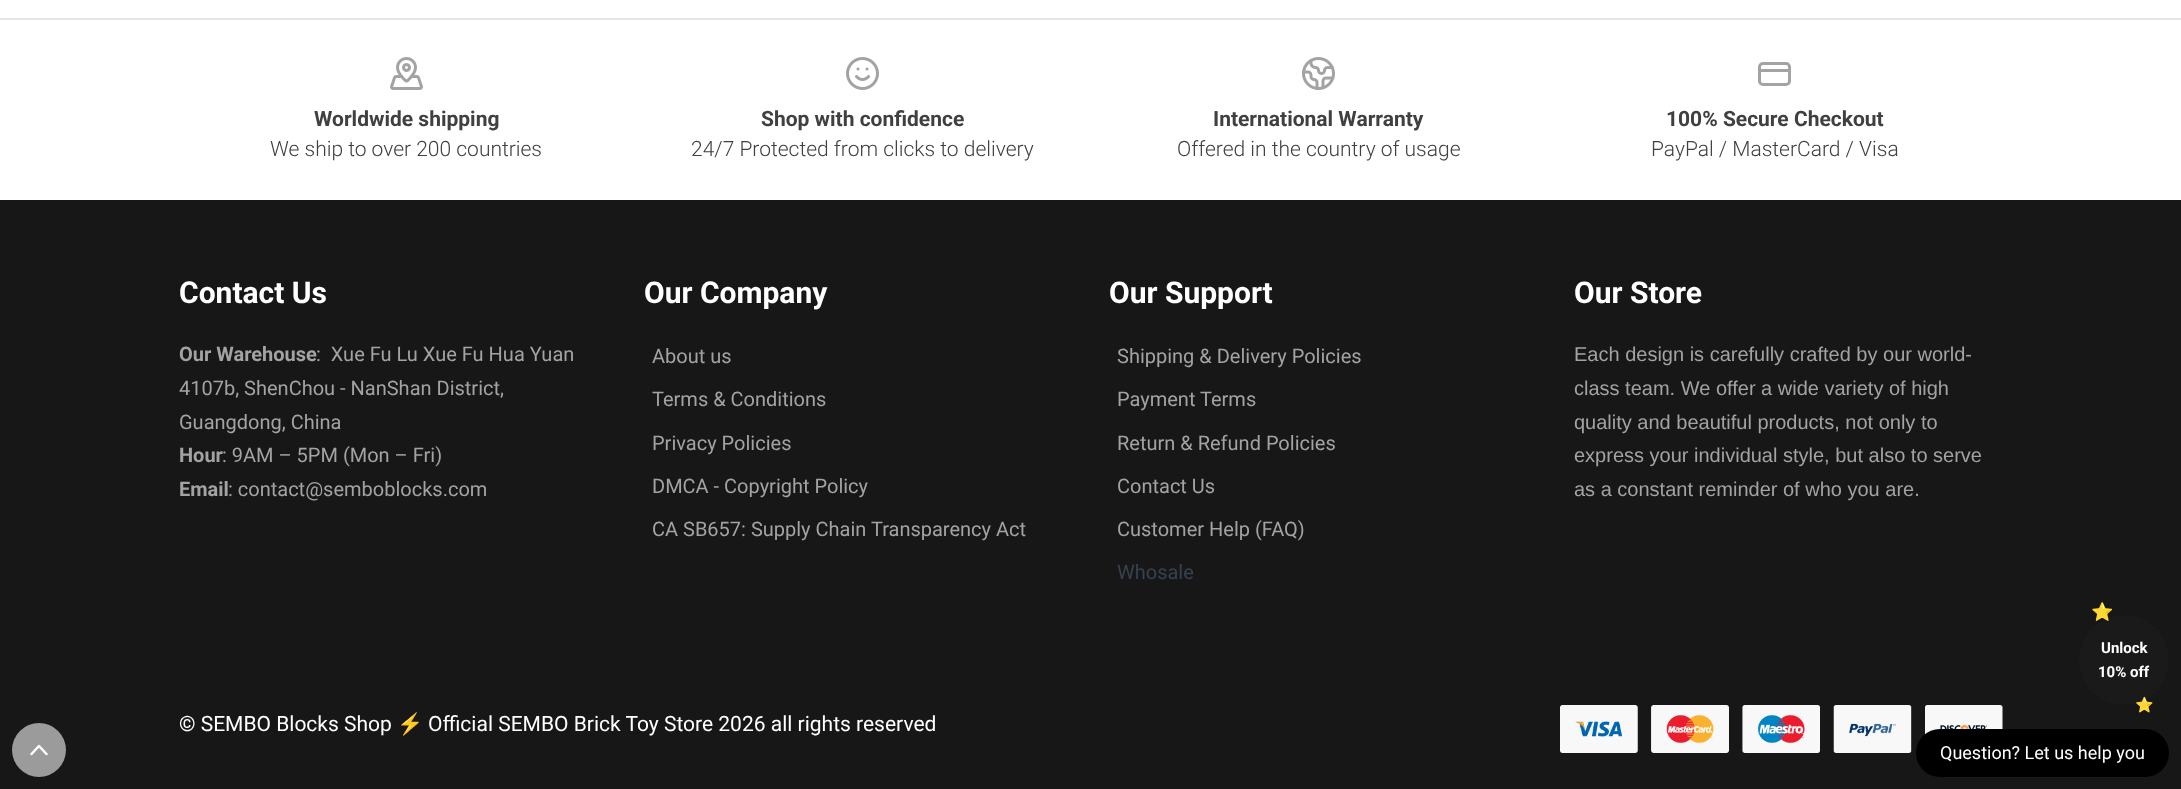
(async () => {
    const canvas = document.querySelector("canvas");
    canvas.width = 2181;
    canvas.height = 789;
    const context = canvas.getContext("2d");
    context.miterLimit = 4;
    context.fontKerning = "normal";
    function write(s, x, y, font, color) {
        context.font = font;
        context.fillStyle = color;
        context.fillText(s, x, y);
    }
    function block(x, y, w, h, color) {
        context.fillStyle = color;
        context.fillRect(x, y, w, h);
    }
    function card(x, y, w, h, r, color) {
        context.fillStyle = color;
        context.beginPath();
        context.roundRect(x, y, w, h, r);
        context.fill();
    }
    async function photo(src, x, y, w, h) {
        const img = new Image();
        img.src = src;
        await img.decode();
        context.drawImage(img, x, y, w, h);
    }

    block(0, 0, 2181, 789, "rgb(255, 255, 255)");
    block(0, 18, 2181, 2, "rgb(229, 229, 229)");
    await photo("media/1.png", 390, 57, 33, 33);
    write("Worldwide shipping", 314, 126, "bold 21px Roboto", "rgb(64, 64, 64)");
    write("We ship to over 200 countries", 270, 156, "300 21px Roboto", "rgb(64, 64, 64)");
    await photo("media/2.png", 846, 57, 33, 33);
    write("Shop with confidence", 761, 126, "bold 21px Roboto", "rgb(64, 64, 64)");
    write("24/7 Protected from clicks to delivery", 691, 156, "300 21px Roboto", "rgb(64, 64, 64)");
    await photo("media/3.png", 1302, 57, 33, 33);
    write("International Warranty", 1213, 126, "bold 21px Roboto", "rgb(64, 64, 64)");
    write("Offered in the country of usage", 1177, 156, "300 21px Roboto", "rgb(64, 64, 64)");
    context.beginPath();
    context.roundRect(1759.5, 63.5, 30, 21, 3.5);
    context.strokeStyle = "rgb(163, 163, 163)";
    context.lineWidth = 3;
    context.stroke();
    context.beginPath();
    context.moveTo(1759.5, 70.5);
    context.lineTo(1789.5, 70.5);
    context.lineCap = "round";
    context.lineJoin = "round";
    context.stroke();
    write("100% Secure Checkout", 1666, 126, "bold 21px Roboto", "rgb(64, 64, 64)");
    write("PayPal / MasterCard / Visa", 1651, 156, "300 21px Roboto", "rgb(64, 64, 64)");
    block(0, 200, 2181, 589, "rgb(23, 23, 23)");
    write("Contact Us", 179, 303, "bold 30px Roboto", "rgb(255, 255, 255)");
    write("Our Warehouse", 179, 361, "bold 20px Roboto", "rgb(163, 163, 163)");
    write(":  Xue Fu Lu Xue Fu Hua Yuan", 316, 361, "20px Roboto", "rgb(163, 163, 163)");
    write("4107b, ShenChou - NanShan District,", 179, 395, "20px Roboto", "rgb(163, 163, 163)");
    write("Guangdong, China", 179, 429, "20px Roboto", "rgb(163, 163, 163)");
    write("Hour", 179, 462, "bold 20px Roboto", "rgb(163, 163, 163)");
    write(": 9AM – 5PM (Mon – Fri)", 222, 462, "20px Roboto", "rgb(163, 163, 163)");
    write("Email", 179, 496, "bold 20px Roboto", "rgb(163, 163, 163)");
    write(": contact@semboblocks.com", 228, 496, "20px Roboto", "rgb(163, 163, 163)");
    write("Our Company", 644, 303, "bold 30px Roboto", "rgb(255, 255, 255)");
    write("About us", 652, 363, "20px Roboto", "rgb(163, 163, 163)");
    write("Terms & Conditions", 652, 406, "20px Roboto", "rgb(163, 163, 163)");
    write("Privacy Policies", 652, 450, "20px Roboto", "rgb(163, 163, 163)");
    write("DMCA - Copyright Policy", 652, 493, "20px Roboto", "rgb(163, 163, 163)");
    write("CA SB657: Supply Chain Transparency Act", 652, 536, "20px Roboto", "rgb(163, 163, 163)");
    write("Our Support", 1109, 303, "bold 30px Roboto", "rgb(255, 255, 255)");
    write("Shipping & Delivery Policies", 1117, 363, "20px Roboto", "rgb(163, 163, 163)");
    write("Payment Terms", 1117, 406, "20px Roboto", "rgb(163, 163, 163)");
    write("Return & Refund Policies", 1117, 450, "20px Roboto", "rgb(163, 163, 163)");
    write("Contact Us", 1117, 493, "20px Roboto", "rgb(163, 163, 163)");
    write("Customer Help (FAQ)", 1117, 536, "20px Roboto", "rgb(163, 163, 163)");
    write("Whosale", 1117, 579, "20px Roboto", "rgb(55, 65, 81)");
    write("Our Store", 1574, 303, "bold 30px Roboto", "rgb(255, 255, 255)");
    write("Each design is carefully crafted by our world-", 1574, 361, "20px Liberation Sans", "rgb(163, 163, 163)");
    write("class team. We offer a wide variety of high", 1574, 395, "20px Liberation Sans", "rgb(163, 163, 163)");
    write("quality and beautiful products, not only to", 1574, 429, "20px Liberation Sans", "rgb(163, 163, 163)");
    write("express your individual style, but also to serve", 1574, 462, "20px Liberation Sans", "rgb(163, 163, 163)");
    write("as a constant reminder of who you are.", 1574, 496, "20px Liberation Sans", "rgb(163, 163, 163)");
    write("© SEMBO Blocks Shop", 179, 731, "21px Roboto", "rgb(255, 255, 255)");
    write("⚡️", 397, 731, "21px Noto Color Emoji", "rgb(255, 255, 255)");
    write("Official SEMBO Brick Toy Store 2026 all rights reserved", 428, 731, "21px Roboto", "rgb(255, 255, 255)");
    await photo("media/4.png", 1560, 705, 443, 48);
    context.fillStyle = "rgb(26, 26, 26)";
    context.beginPath();
    context.arc(2124, 660, 45, 0, Math.PI * 2);
    context.fill();
    write("⭐", 2091, 618, "bold 18px Noto Color Emoji", "rgb(255, 215, 0)");
    write("Unlock", 2101, 653, "bold 15px Roboto", "rgb(255, 255, 255)");
    write("10% off", 2098, 677, "bold 15px Roboto", "rgb(255, 255, 255)");
    write("⭐", 2135, 710, "bold 15px Noto Color Emoji", "rgb(255, 215, 0)");
    context.fillStyle = "rgb(155, 155, 155)";
    context.beginPath();
    context.arc(39, 750, 27, 0, Math.PI * 2);
    context.fill();
    context.beginPath();
    context.moveTo(46.5, 754);
    context.lineTo(39, 746);
    context.lineTo(31.5, 754);
    context.strokeStyle = "rgb(255, 255, 255)";
    context.lineWidth = 2.5;
    context.stroke();
    card(1916, 729, 253, 48, 24, "rgb(0, 0, 0)");
    write("Question? Let us help you", 1940, 759, "18px Roboto", "rgb(255, 255, 255)");
})();
